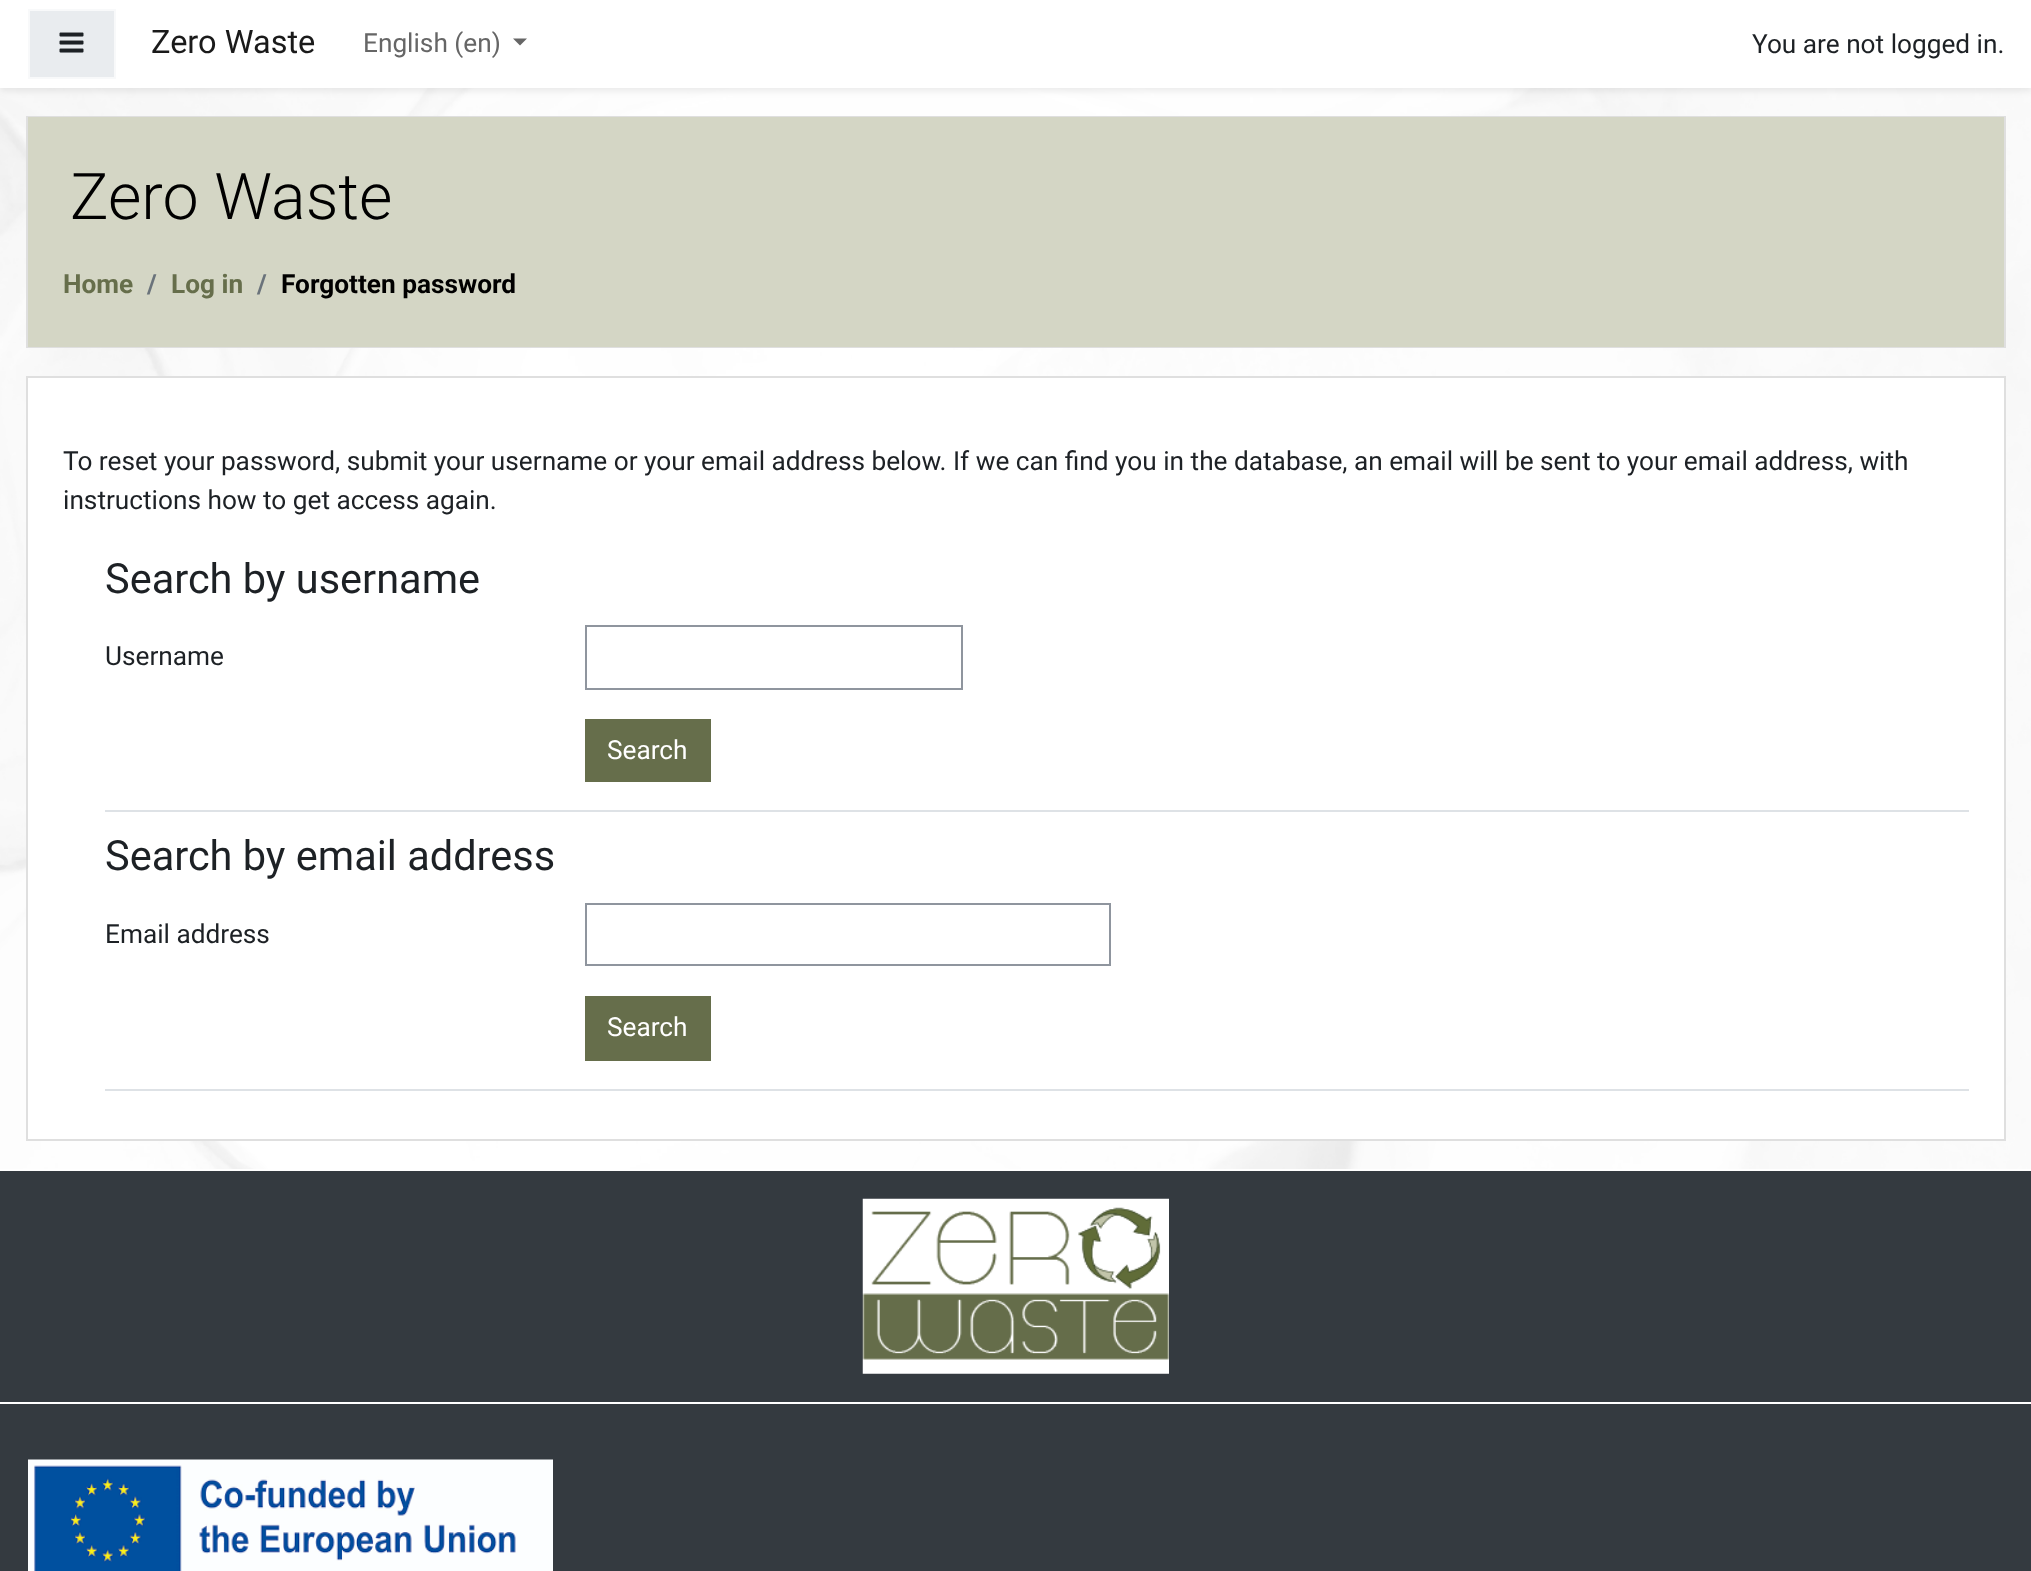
(async () => {
    const canvas = document.querySelector("canvas");
    canvas.width = 2031;
    canvas.height = 1571;
    const context = canvas.getContext("2d");
    context.miterLimit = 4;
    context.fontKerning = "normal";
    function write(s, x, y, font, color) {
        context.font = font;
        context.fillStyle = color;
        context.fillText(s, x, y);
    }
    function block(x, y, w, h, color) {
        context.fillStyle = color;
        context.fillRect(x, y, w, h);
    }
    async function photo(src, x, y, w, h) {
        const img = new Image();
        img.src = src;
        await img.decode();
        context.drawImage(img, x, y, w, h);
    }

    block(0, 0, 2031, 1571, "rgb(255, 255, 255)");
    await photo("media/1.png", 0, 88, 2031, 1081);
    context.fillStyle = "rgba(0, 0, 0, 0.08)";
    context.filter = "blur(3.5px)";
    context.beginPath();
    context.rect(0, 4, 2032, 87);
    context.fill();
    context.filter = "none";
    block(0, 0, 2031, 88, "rgb(255, 255, 255)");
    context.fillStyle = "rgb(233, 236, 239)";
    context.beginPath();
    context.rect(29, 10, 86, 68);
    context.fill();
    context.strokeStyle = "rgb(248, 249, 250)";
    context.lineWidth = 2;
    context.stroke();
    await photo("media/2.png", 59, 32, 25, 21);
    write("Zero Waste", 151, 53, "32.5px Roboto", "rgb(26, 26, 26)");
    write("English (en)", 363, 52, "26.22px Roboto", "rgb(102, 102, 102)");
    context.beginPath();
    context.moveTo(513, 38.5);
    context.lineTo(527, 38.5);
    context.lineTo(520, 45.5);
    context.closePath();
    context.fill();
    write("You are not logged in.", 1752, 53, "26.22px Roboto", "rgb(29, 33, 37)");
    context.strokeStyle = "rgb(223, 223, 223)";
    context.strokeRect(27, 117, 1978, 230);
    block(28, 117, 1976, 230, "rgb(212, 214, 197)");
    write("Zero Waste", 70, 219, "300 64.5px Roboto", "rgb(0, 0, 0)");
    write("Home", 63, 293, "bold 26.22px Roboto", "rgb(102, 110, 75)");
    write("/", 147, 293, "bold 26.22px Roboto", "rgb(106, 115, 123)");
    write("Log in", 171, 293, "bold 26.22px Roboto", "rgb(102, 110, 75)");
    write("/", 257, 293, "bold 26.22px Roboto", "rgb(106, 115, 123)");
    write("Forgotten password", 281, 293, "bold 26.22px Roboto", "rgb(0, 0, 0)");
    context.fillStyle = "rgb(255, 255, 255)";
    context.beginPath();
    context.rect(27, 377, 1978, 763);
    context.fill();
    context.stroke();
    write("To reset your password, submit your username or your email address below. If we can find you in the database, an email will be sent to your email address, with", 63, 470, "26.22px Roboto", "rgb(29, 33, 37)");
    write("instructions how to get access again.", 63, 509, "26.22px Roboto", "rgb(29, 33, 37)");
    block(105, 810, 1864, 2, "rgb(222, 226, 230)");
    write("Search by username", 105, 593, "41.5px Roboto", "rgb(29, 33, 37)");
    write("Username", 105, 665, "26.22px Roboto", "rgb(29, 33, 37)");
    context.strokeStyle = "rgb(143, 149, 158)";
    context.strokeRect(586, 626, 376, 63);
    block(585, 719, 126, 63, "rgb(102, 110, 75)");
    write("Search", 607, 759, "26.22px Roboto", "rgb(255, 255, 255)");
    block(105, 1089, 1864, 2, "rgb(222, 226, 230)");
    write("Search by email address", 105, 870, "41.5px Roboto", "rgb(29, 33, 37)");
    write("Email address", 105, 943, "26.22px Roboto", "rgb(29, 33, 37)");
    context.strokeRect(586, 904, 524, 61);
    block(585, 996, 126, 65, "rgb(102, 110, 75)");
    write("Search", 607, 1036, "26.22px Roboto", "rgb(255, 255, 255)");
    block(0, 1171, 2031, 231, "rgb(52, 58, 64)");
    await photo("media/3.png", 862, 1198, 307, 176);
    block(0, 1404, 2031, 167, "rgb(52, 58, 64)");
    await photo("media/4.png", 28, 1459, 525, 112);
})();
